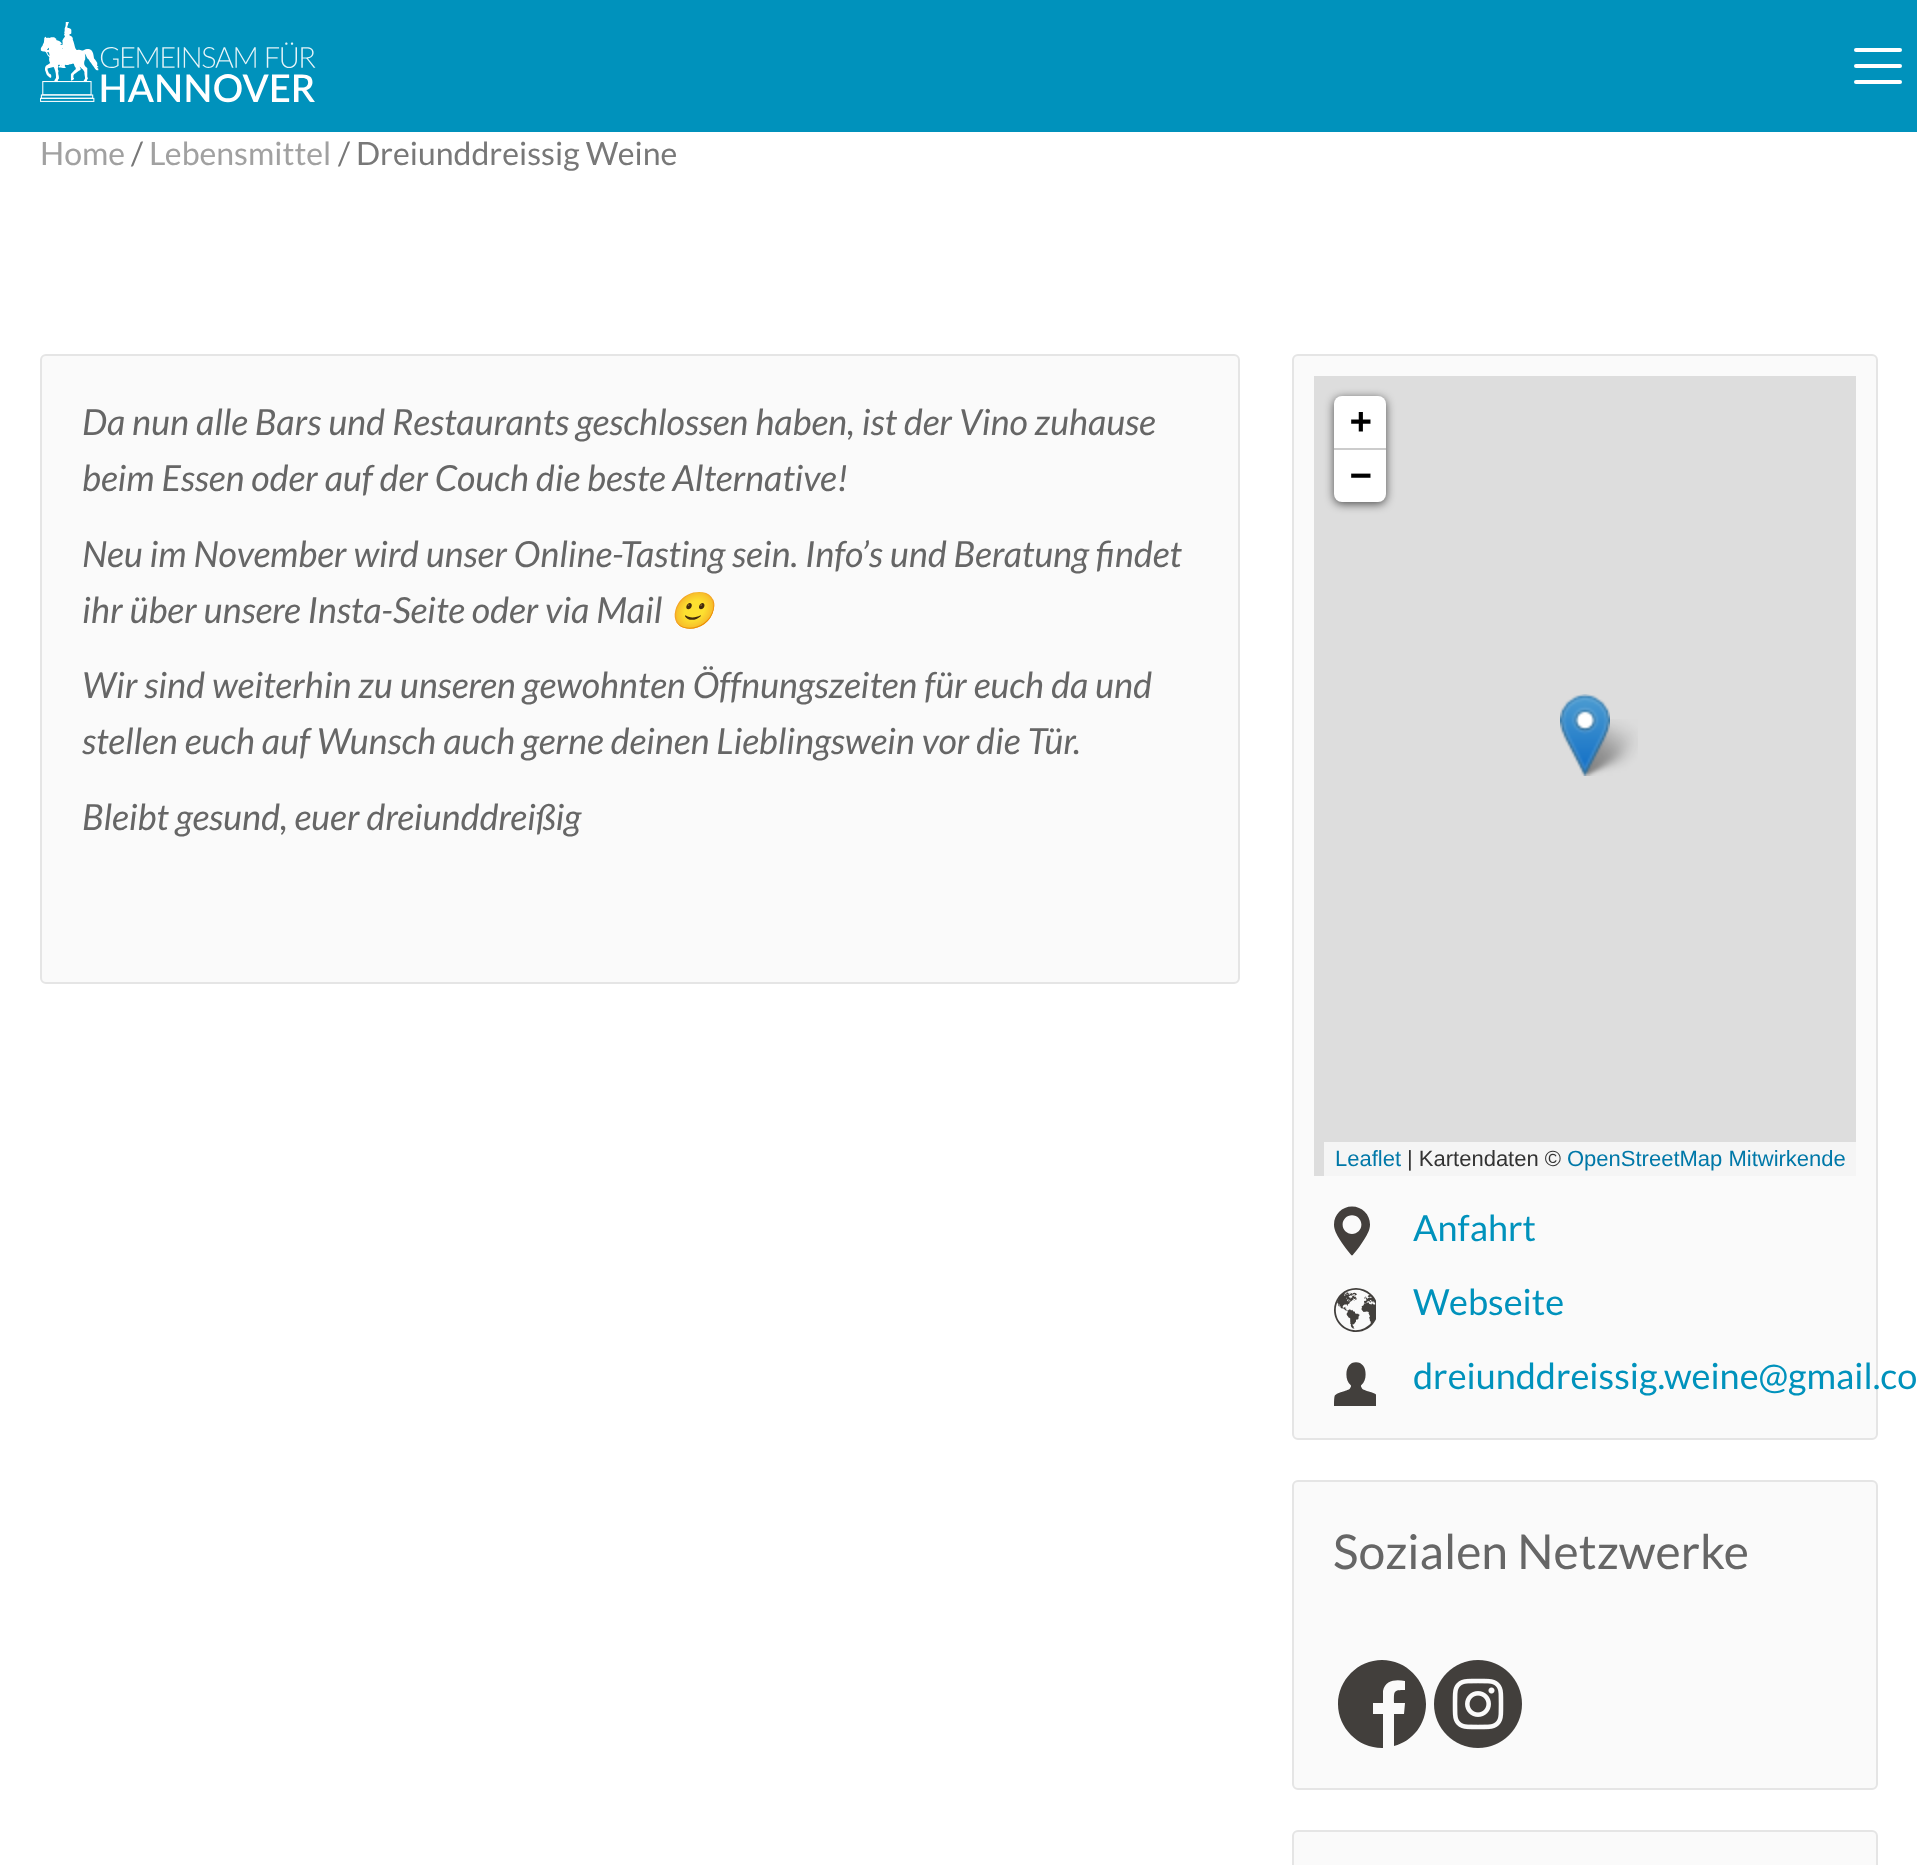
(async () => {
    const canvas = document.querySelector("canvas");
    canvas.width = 1917;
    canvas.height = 1865;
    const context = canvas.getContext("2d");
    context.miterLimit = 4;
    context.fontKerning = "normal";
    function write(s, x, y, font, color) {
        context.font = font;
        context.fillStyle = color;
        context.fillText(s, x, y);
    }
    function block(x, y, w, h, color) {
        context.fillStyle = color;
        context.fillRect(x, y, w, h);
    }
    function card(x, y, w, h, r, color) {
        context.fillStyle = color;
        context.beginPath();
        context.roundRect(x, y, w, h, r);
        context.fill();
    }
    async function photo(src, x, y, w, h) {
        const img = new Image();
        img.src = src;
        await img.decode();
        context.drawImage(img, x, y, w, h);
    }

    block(0, 0, 1917, 1865, "rgb(255, 255, 255)");
    block(0, 0, 1917, 132, "rgb(0, 146, 188)");
    await photo("media/1.png", 40, 22, 276, 81);
    card(1854, 48, 48, 4, 2, "rgb(255, 255, 255)");
    card(1854, 64, 48, 4, 2, "rgb(255, 255, 255)");
    card(1854, 80, 48, 4, 2, "rgb(255, 255, 255)");
    write("Home", 40, 165, "32px Lato", "rgb(161, 161, 161)");
    write("/", 131, 165, "32px Lato", "rgb(120, 120, 120)");
    write("Lebensmittel", 149, 165, "32px Lato", "rgb(161, 161, 161)");
    write("/", 338, 165, "32px Lato", "rgb(120, 120, 120)");
    write("Dreiunddreissig Weine", 356, 165, "32px Lato", "rgb(120, 120, 120)");
    context.fillStyle = "rgb(250, 250, 250)";
    context.beginPath();
    context.roundRect(41, 355, 1198, 628, 5);
    context.fill();
    context.strokeStyle = "rgb(229, 229, 229)";
    context.lineWidth = 2;
    context.stroke();
    write("Da nun alle Bars und Restaurants geschlossen haben, ist der Vino zuhause", 82, 435, "italic 36.05px Lato", "rgb(102, 102, 102)");
    write("beim Essen oder auf der Couch die beste Alternative!", 82, 491, "italic 36.05px Lato", "rgb(102, 102, 102)");
    write("Neu im November wird unser Online-Tasting sein. Info’s und Beratung findet", 82, 567, "italic 36.05px Lato", "rgb(102, 102, 102)");
    write("ihr über unsere Insta-Seite oder via Mail", 82, 623, "italic 36.05px Lato", "rgb(102, 102, 102)");
    write("🙂", 669, 623, "italic 36.05px Noto Color Emoji", "rgb(102, 102, 102)");
    write("Wir sind weiterhin zu unseren gewohnten Öffnungszeiten für euch da und", 82, 698, "italic 36.05px Lato", "rgb(102, 102, 102)");
    write("stellen euch auf Wunsch auch gerne deinen Lieblingswein vor die Tür.", 82, 754, "italic 36.05px Lato", "rgb(102, 102, 102)");
    write("Bleibt gesund, euer dreiunddreißig", 82, 830, "italic 36.05px Lato", "rgb(102, 102, 102)");
    context.fillStyle = "rgb(250, 250, 250)";
    context.beginPath();
    context.roundRect(1293, 355, 584, 1084, 5);
    context.fill();
    context.stroke();
    block(1314, 376, 542, 800, "rgb(221, 221, 221)");
    context.fillStyle = "rgba(0, 0, 0, 0.65)";
    context.filter = "blur(5px)";
    context.beginPath();
    context.roundRect(1334, 398, 52, 106, 8);
    context.fill();
    context.filter = "none";
    context.fillStyle = "rgb(255, 255, 255)";
    context.beginPath();
    context.roundRect(1334, 396, 52, 54, [8, 8, 0, 0]);
    context.fill();
    block(1334, 448, 52, 2, "rgb(204, 204, 204)");
    write("+", 1350, 433, "bold 36px DejaVu Sans Mono", "rgb(0, 0, 0)");
    context.fillStyle = "rgb(255, 255, 255)";
    context.beginPath();
    context.roundRect(1334, 450, 52, 52, [0, 0, 8, 8]);
    context.fill();
    write("−", 1350, 487, "bold 36px DejaVu Sans Mono", "rgb(0, 0, 0)");
    block(1324, 1142, 532, 34, "rgb(245, 245, 245)");
    write("Leaflet", 1335, 1166, "22px Liberation Sans", "rgb(0, 120, 168)");
    write("| Kartendaten ©", 1407, 1166, "22px Liberation Sans", "rgb(51, 51, 51)");
    write("OpenStreetMap Mitwirkende", 1567, 1166, "22px Liberation Sans", "rgb(0, 120, 168)");
    await photo("media/3.png", 1578, 719, 60, 57);
    await photo("media/2.png", 1560, 694, 50, 82);
    await photo("media/4.png", 1334, 1206, 36, 50);
    write("Anfahrt", 1413, 1241, "36px Lato", "rgb(0, 146, 188)");
    await photo("media/5.png", 1334, 1288, 42, 44);
    write("Webseite", 1413, 1315, "36px Lato", "rgb(0, 146, 188)");
    await photo("media/6.png", 1334, 1362, 42, 44);
    write("dreiunddreissig.weine@gmail.co", 1413, 1389, "36px Lato", "rgb(0, 146, 188)");
    context.fillStyle = "rgb(250, 250, 250)";
    context.beginPath();
    context.roundRect(1293, 1481, 584, 308, 5);
    context.fill();
    context.stroke();
    write("Sozialen Netzwerke", 1333, 1569, "48px Lato", "rgb(102, 102, 102)");
    context.fillStyle = "rgb(66, 63, 60)";
    context.beginPath();
    context.moveTo(1426, 1704);
    context.bezierCurveTo(1426, 1680, 1406, 1660, 1382, 1660);
    context.bezierCurveTo(1358, 1660, 1338, 1680, 1338, 1704);
    context.bezierCurveTo(1338, 1728, 1358, 1748, 1382, 1748);
    context.lineTo(1383, 1748);
    context.lineTo(1383, 1714);
    context.lineTo(1373, 1714);
    context.lineTo(1373, 1703);
    context.lineTo(1383, 1703);
    context.lineTo(1383, 1691);
    context.bezierCurveTo(1385, 1680, 1396, 1679, 1405, 1681);
    context.lineTo(1405, 1690);
    context.bezierCurveTo(1393, 1690, 1394, 1691, 1394, 1703);
    context.lineTo(1405, 1703);
    context.lineTo(1404, 1714);
    context.lineTo(1394, 1714);
    context.lineTo(1394, 1746);
    context.bezierCurveTo(1413, 1741, 1426, 1724, 1426, 1704);
    context.closePath();
    context.fill();
    await photo("media/7.png", 1434, 1660, 88, 88);
    context.fillStyle = "rgb(250, 250, 250)";
    context.beginPath();
    context.roundRect(1293, 1831, 584, 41, 5);
    context.fill();
    context.stroke();
})();
